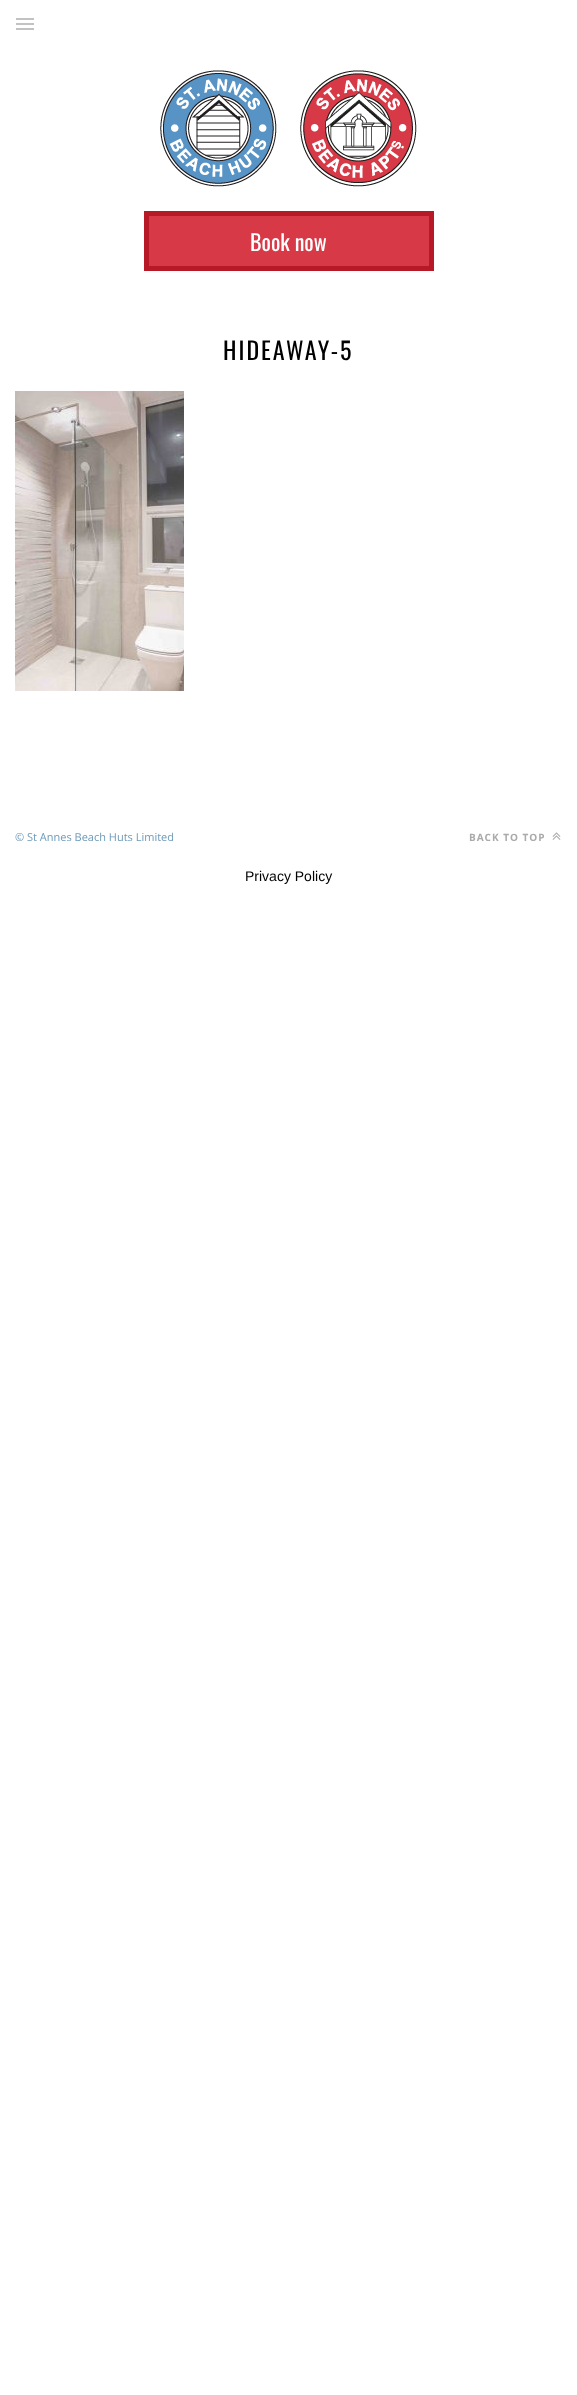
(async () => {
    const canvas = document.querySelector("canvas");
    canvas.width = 577;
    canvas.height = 2395;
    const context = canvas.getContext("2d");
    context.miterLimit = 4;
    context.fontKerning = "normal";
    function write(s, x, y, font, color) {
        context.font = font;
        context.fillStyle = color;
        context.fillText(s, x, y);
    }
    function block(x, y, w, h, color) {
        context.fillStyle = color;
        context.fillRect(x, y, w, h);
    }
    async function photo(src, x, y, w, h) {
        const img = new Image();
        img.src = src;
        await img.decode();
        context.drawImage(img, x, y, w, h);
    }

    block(0, 0, 577, 2395, "rgb(255, 255, 255)");
    block(16, 18, 18, 2, "rgb(194, 194, 194)");
    block(16, 23, 18, 2, "rgb(194, 194, 194)");
    block(16, 28, 18, 2, "rgb(194, 194, 194)");
    await photo("media/1.png", 160, 70, 257, 117);
    context.fillStyle = "rgb(215, 57, 71)";
    context.beginPath();
    context.rect(146.5, 213.5, 285, 55);
    context.fill();
    context.strokeStyle = "rgb(183, 25, 39)";
    context.lineWidth = 5;
    context.stroke();
    write("Book now", 250, 251, "22px Oswald", "rgb(255, 255, 255)");
    context.letterSpacing = "2px";
    write("HIDEAWAY-5", 223, 360, "24px Oswald", "rgb(0, 0, 0)");
    await photo("media/2.png", 15, 391, 169, 300);
    context.letterSpacing = "0px";
    write("© St Annes Beach Huts Limited", 15, 841, "11px Open Sans", "rgb(109, 154, 185)");
    context.letterSpacing = "1px";
    write("BACK TO TOP", 469, 841, "bold 10px Open Sans", "rgb(170, 170, 170)");
    await photo("media/3.png", 552, 832, 9, 8);
    context.letterSpacing = "0px";
    write("Privacy Policy", 245, 881, "14px Liberation Sans", "rgb(0, 0, 0)");
})();
